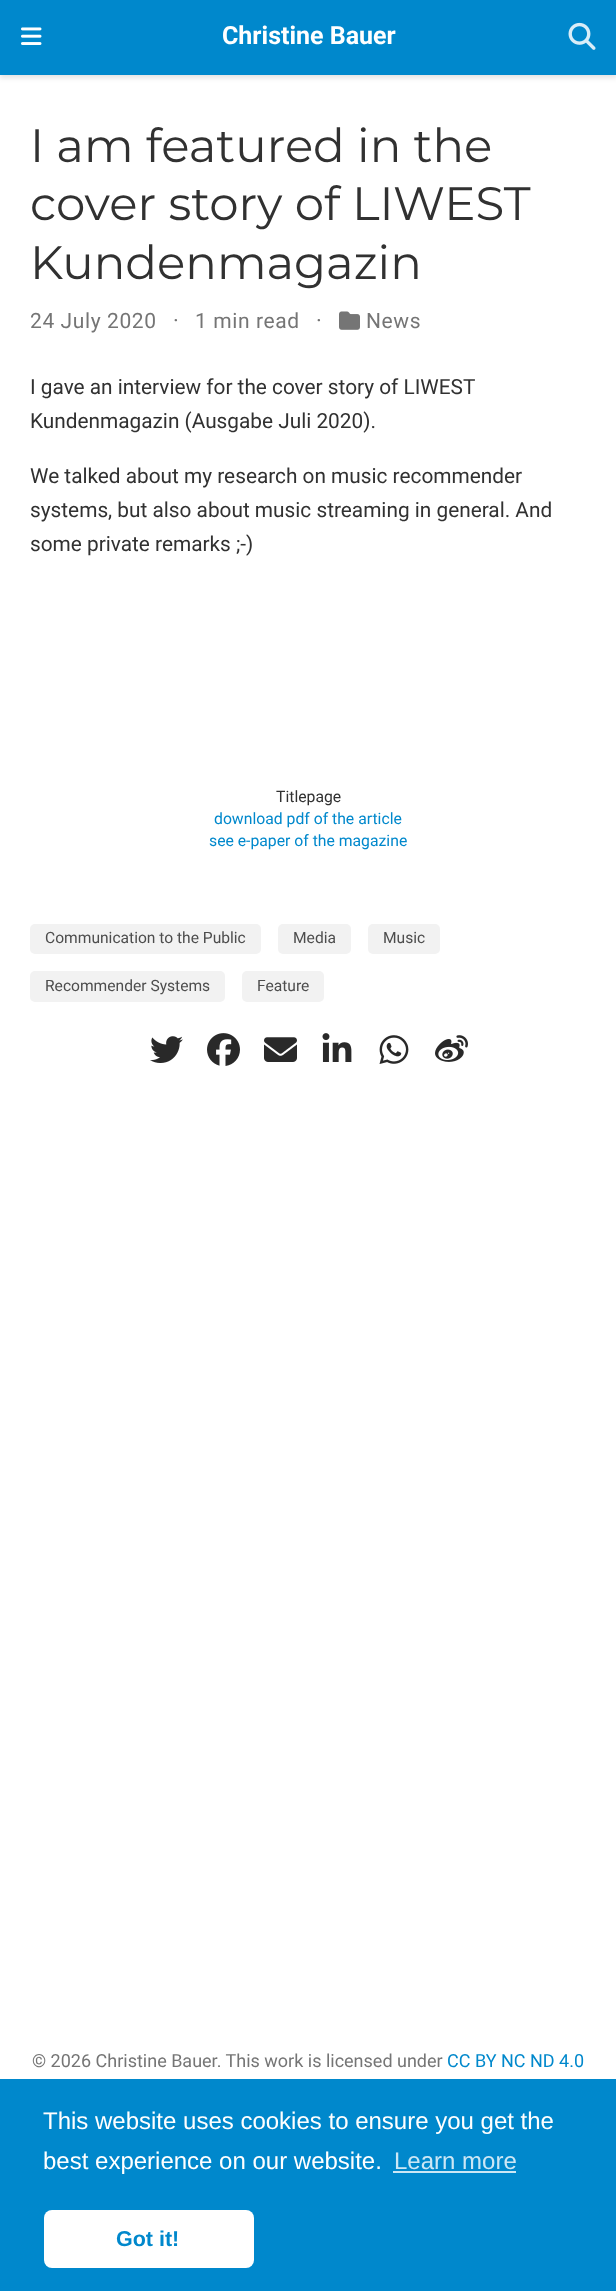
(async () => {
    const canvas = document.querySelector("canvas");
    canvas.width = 616;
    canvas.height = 2291;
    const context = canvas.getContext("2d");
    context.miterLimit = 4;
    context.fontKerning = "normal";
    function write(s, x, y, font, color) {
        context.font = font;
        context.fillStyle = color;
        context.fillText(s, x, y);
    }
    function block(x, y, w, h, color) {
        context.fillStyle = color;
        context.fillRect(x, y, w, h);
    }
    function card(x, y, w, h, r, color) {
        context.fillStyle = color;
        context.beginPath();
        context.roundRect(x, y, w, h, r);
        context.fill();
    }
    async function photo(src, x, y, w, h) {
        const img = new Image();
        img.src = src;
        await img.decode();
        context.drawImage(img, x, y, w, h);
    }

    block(0, 0, 616, 2291, "rgb(255, 255, 255)");
    context.fillStyle = "rgba(0, 0, 0, 0.11)";
    context.filter = "blur(2.5px)";
    context.beginPath();
    context.rect(0, 3, 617, 75);
    context.fill();
    context.filter = "none";
    block(0, 0, 616, 75, "rgb(0, 136, 204)");
    await photo("media/1.png", 21, 27, 21, 18);
    write("Christine Bauer", 222, 44, "bold 25px Roboto", "rgb(255, 255, 255)");
    await photo("media/2.png", 568, 22, 28, 28);
    write("I am featured in the", 30, 162, "46.75px Montserrat", "rgb(49, 49, 49)");
    write("cover story of LIWEST", 30, 220, "46.75px Montserrat", "rgb(49, 49, 49)");
    write("Kundenmagazin", 30, 279, "46.75px Montserrat", "rgb(49, 49, 49)");
    context.letterSpacing = "0.6px";
    write("24 July 2020", 30, 328, "21px Roboto", "rgb(117, 117, 117)");
    write("·", 173, 328, "22px Roboto", "rgb(117, 117, 117)");
    write("1 min read", 195, 328, "21px Roboto", "rgb(117, 117, 117)");
    write("·", 316, 328, "22px Roboto", "rgb(117, 117, 117)");
    await photo("media/3.png", 339, 311, 21, 19);
    write("News", 366, 328, "21px Roboto", "rgb(117, 117, 117)");
    context.letterSpacing = "0px";
    write("I gave an interview for the cover story of LIWEST", 30, 394, "20.8px Roboto", "rgb(49, 49, 49)");
    write("Kundenmagazin (Ausgabe Juli 2020).", 30, 428, "20.8px Roboto", "rgb(49, 49, 49)");
    write("We talked about my research on music recommender", 30, 483, "20.8px Roboto", "rgb(49, 49, 49)");
    write("systems, but also about music streaming in general. And", 30, 517, "20.8px Roboto", "rgb(49, 49, 49)");
    write("some private remarks ;-)", 30, 551, "20.8px Roboto", "rgb(49, 49, 49)");
    write("Titlepage", 276, 802, "15.75px Roboto", "rgb(49, 49, 49)");
    write("download pdf of the article", 214, 824, "15.75px Roboto", "rgb(0, 136, 204)");
    write("see e-paper of the magazine", 209, 846, "15.75px Roboto", "rgb(0, 136, 204)");
    card(30, 924, 231, 30, 5, "rgb(242, 242, 242)");
    write("Communication to the Public", 45, 943, "15.6px Roboto", "rgb(77, 77, 77)");
    card(278, 924, 73, 30, 5, "rgb(242, 242, 242)");
    write("Media", 293, 943, "15.6px Roboto", "rgb(77, 77, 77)");
    card(368, 924, 72, 30, 5, "rgb(242, 242, 242)");
    write("Music", 383, 943, "15.6px Roboto", "rgb(77, 77, 77)");
    card(30, 971, 195, 31, 5, "rgb(242, 242, 242)");
    write("Recommender Systems", 45, 991, "15.6px Roboto", "rgb(77, 77, 77)");
    card(242, 971, 82, 31, 5, "rgb(242, 242, 242)");
    write("Feature", 257, 991, "15.6px Roboto", "rgb(77, 77, 77)");
    await photo("media/4.png", 150, 1036, 33, 27);
    await photo("media/5.png", 207, 1033, 33, 33);
    await photo("media/6.png", 264, 1037, 33, 25);
    await photo("media/7.png", 322, 1033, 30, 29);
    await photo("media/8.png", 379, 1035, 30, 29);
    await photo("media/9.png", 435, 1035, 33, 27);
    write("© 2026 Christine Bauer. This work is licensed under", 32, 2067, "18px Roboto", "rgb(117, 117, 117)");
    write("CC BY NC ND 4.0", 447, 2067, "18px Roboto", "rgb(0, 136, 204)");
    block(0, 2079, 616, 212, "rgb(0, 136, 204)");
    write("This website uses cookies to ensure you get the", 43, 2129, "24px Liberation Sans", "rgb(255, 255, 255)");
    write("best experience on our website.", 43, 2169, "24px Liberation Sans", "rgb(255, 255, 255)");
    write("Learn more", 394, 2169, "24px Liberation Sans", "rgb(204, 231, 245)");
    block(393, 2171, 123, 2, "rgb(204, 231, 245)");
    card(44, 2210, 210, 58, 8, "rgb(255, 255, 255)");
    write("Got it!", 116, 2246, "bold 21.5px Liberation Sans", "rgb(0, 136, 204)");
})();
